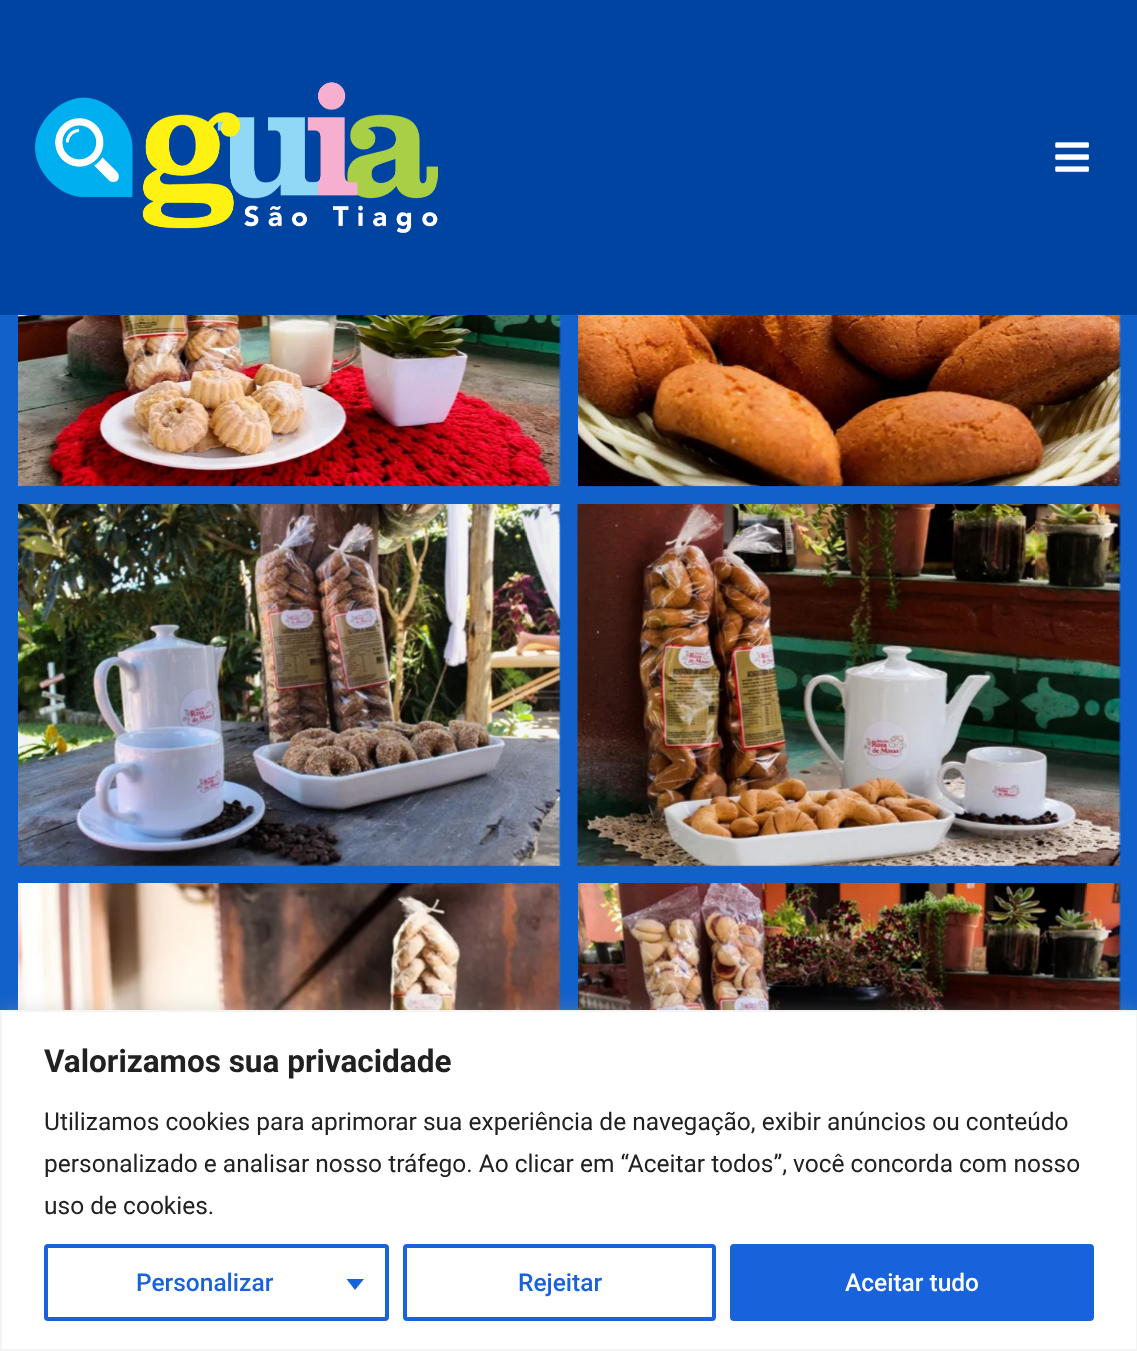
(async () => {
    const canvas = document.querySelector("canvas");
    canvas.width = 1137;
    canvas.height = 1351;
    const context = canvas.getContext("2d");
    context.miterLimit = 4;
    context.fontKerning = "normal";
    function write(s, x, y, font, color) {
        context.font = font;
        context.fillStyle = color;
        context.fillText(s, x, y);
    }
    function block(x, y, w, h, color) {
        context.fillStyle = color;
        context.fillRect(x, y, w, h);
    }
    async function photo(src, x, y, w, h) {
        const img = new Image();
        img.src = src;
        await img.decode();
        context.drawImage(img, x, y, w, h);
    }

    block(0, 0, 1137, 1351, "rgb(18, 96, 202)");
    block(0, 0, 1137, 315, "rgb(0, 68, 161)");
    await photo("media/1.png", 35, 82, 403, 151);
    await photo("media/2.png", 1055, 142, 34, 30);
    await photo("media/3.png", 18, 315, 543, 172);
    await photo("media/4.png", 578, 315, 543, 172);
    await photo("media/5.png", 18, 504, 543, 363);
    await photo("media/6.png", 577, 504, 544, 363);
    await photo("media/7.png", 18, 883, 543, 127);
    await photo("media/8.png", 578, 883, 543, 127);
    context.fillStyle = "rgba(172, 171, 171, 0.3)";
    context.filter = "blur(9px)";
    context.beginPath();
    context.rect(0, 1008, 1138, 341);
    context.fill();
    context.filter = "none";
    context.fillStyle = "rgb(255, 255, 255)";
    context.beginPath();
    context.rect(1, 1011, 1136, 339);
    context.fill();
    context.strokeStyle = "rgb(244, 244, 244)";
    context.lineWidth = 2;
    context.stroke();
    write("Valorizamos sua privacidade", 44, 1072, "bold 31.5px Roboto", "rgb(33, 33, 33)");
    write("Utilizamos cookies para aprimorar sua experiência de navegação, exibir anúncios ou conteúdo", 44, 1130, "24.5px Roboto", "rgb(33, 33, 33)");
    write("personalizado e analisar nosso tráfego. Ao clicar em “Aceitar todos”, você concorda com nosso", 44, 1172, "24.5px Roboto", "rgb(33, 33, 33)");
    write("uso de cookies.", 44, 1214, "24.5px Roboto", "rgb(33, 33, 33)");
    context.beginPath();
    context.roundRect(46, 1246, 341, 73, 2);
    context.strokeStyle = "rgb(24, 99, 220)";
    context.lineWidth = 4;
    context.stroke();
    write("Personalizar", 136, 1291, "500 24.5px Roboto", "rgb(24, 99, 220)");
    context.beginPath();
    context.moveTo(346.5, 1279);
    context.lineTo(364, 1279);
    context.lineTo(355, 1290);
    context.closePath();
    context.fill();
    context.beginPath();
    context.roundRect(405, 1246, 309, 73, 2);
    context.stroke();
    write("Rejeitar", 518, 1291, "500 24.5px Roboto", "rgb(24, 99, 220)");
    context.beginPath();
    context.roundRect(732, 1246, 360, 73, 2);
    context.fill();
    context.stroke();
    write("Aceitar tudo", 845, 1291, "500 24.5px Roboto", "rgb(255, 255, 255)");
})();
